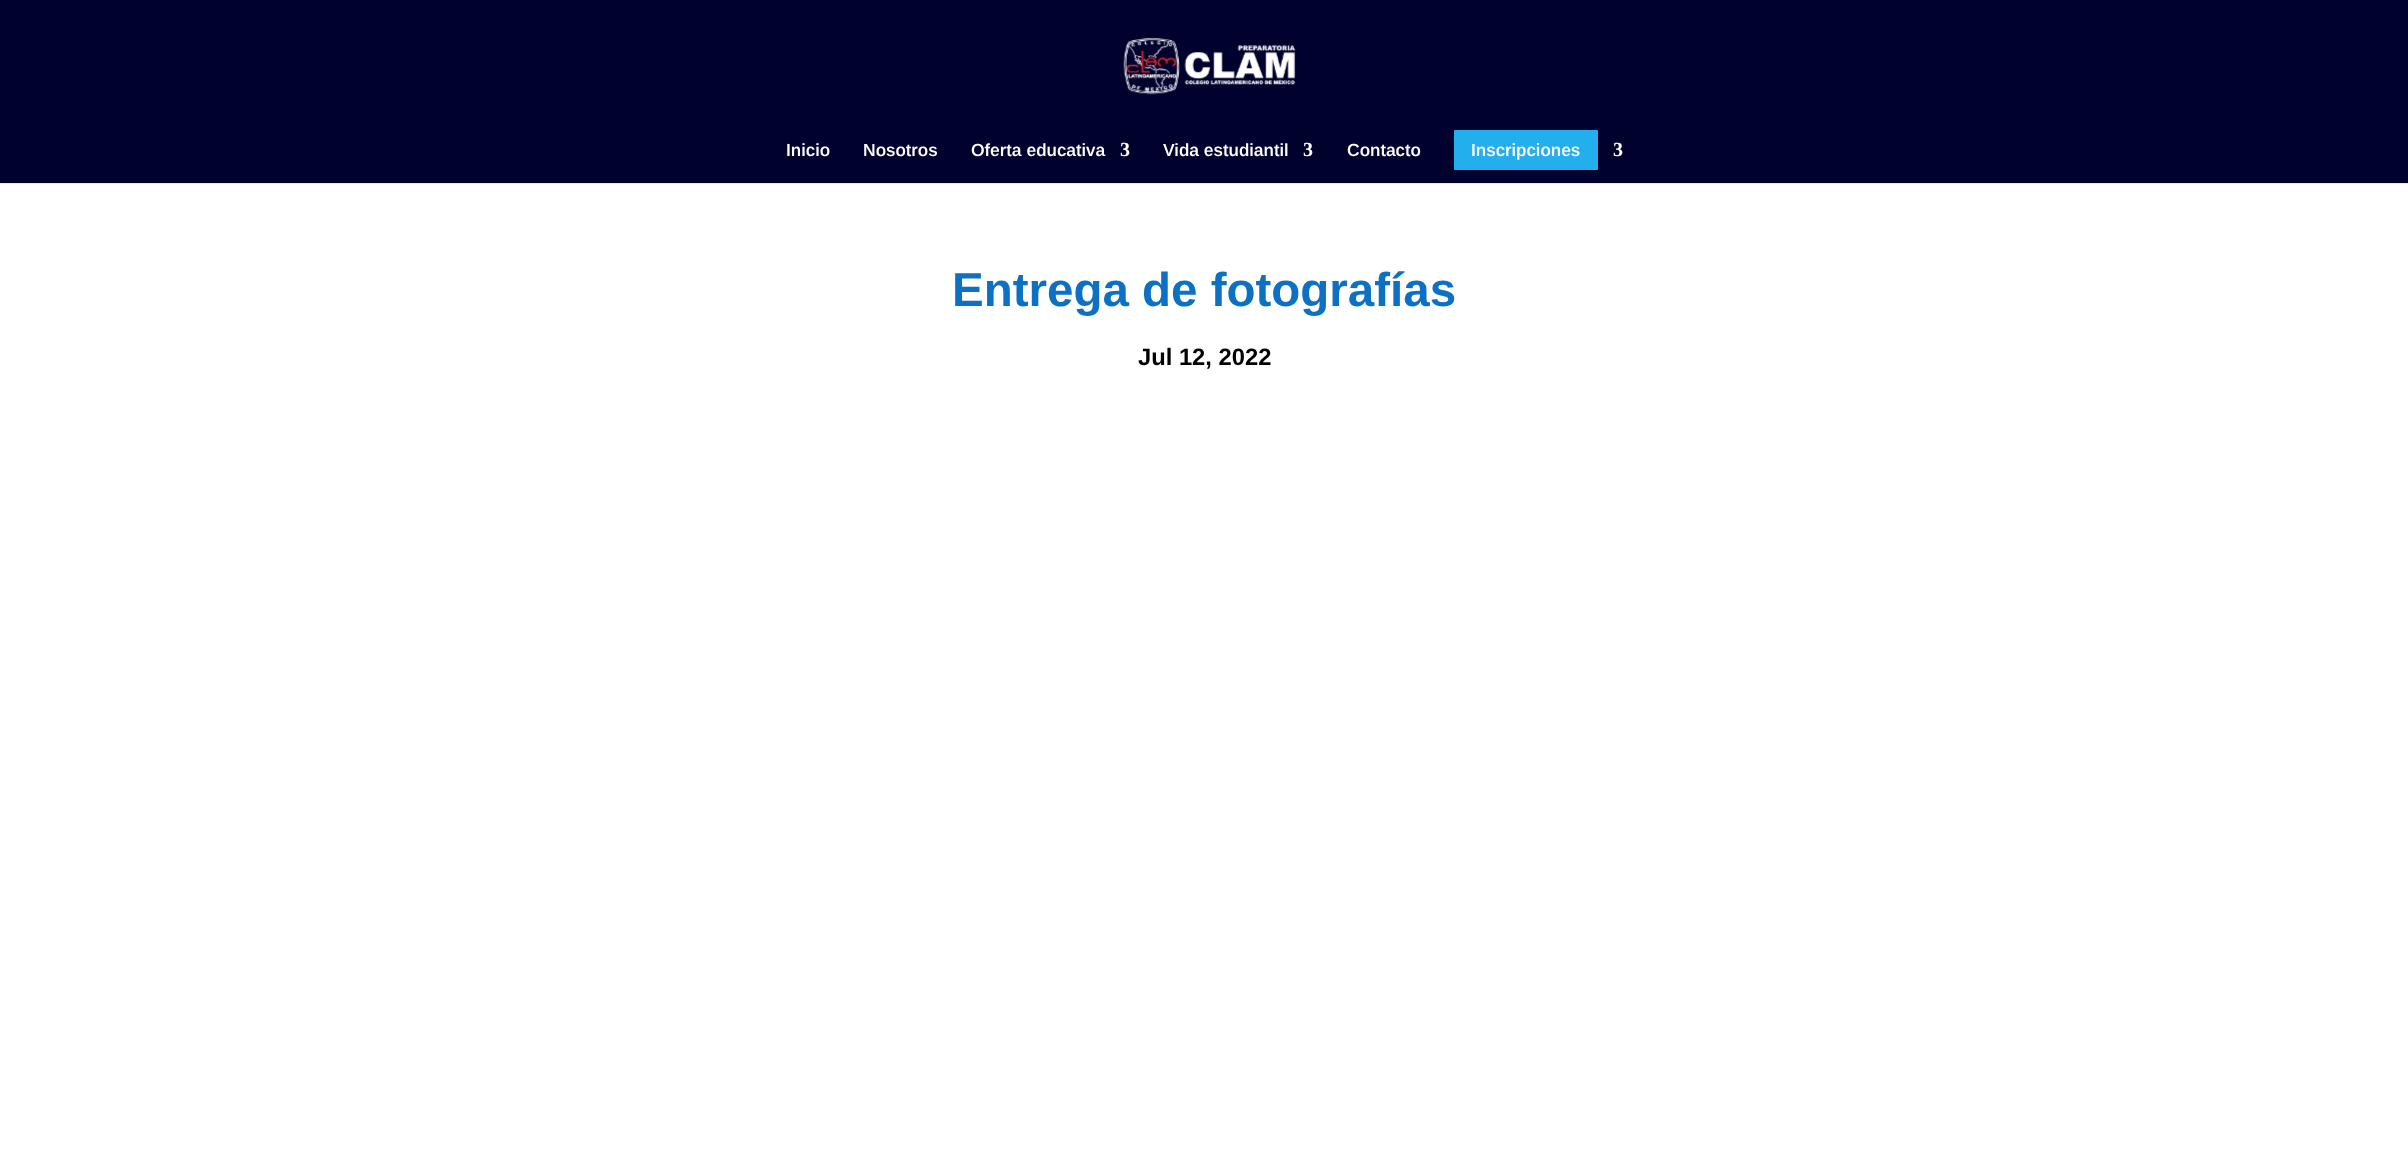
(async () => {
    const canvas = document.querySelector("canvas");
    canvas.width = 2408;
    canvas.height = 1160;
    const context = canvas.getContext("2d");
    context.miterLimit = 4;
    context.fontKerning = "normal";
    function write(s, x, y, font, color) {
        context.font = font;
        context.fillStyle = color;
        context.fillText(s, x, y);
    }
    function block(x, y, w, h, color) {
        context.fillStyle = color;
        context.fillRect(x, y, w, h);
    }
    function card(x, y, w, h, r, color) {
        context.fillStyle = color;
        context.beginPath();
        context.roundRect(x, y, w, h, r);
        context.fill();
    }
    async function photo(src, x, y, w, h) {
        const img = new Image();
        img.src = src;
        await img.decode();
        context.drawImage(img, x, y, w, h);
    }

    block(0, 0, 2408, 1160, "rgb(255, 255, 255)");
    context.fillStyle = "rgb(230, 230, 230)";
    context.beginPath();
    context.moveTo(0, 182);
    context.lineTo(0, 184);
    context.lineTo(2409, 184);
    context.lineTo(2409, 1);
    context.lineTo(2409, 182);
    context.closePath();
    context.fill();
    block(0, 0, 2408, 183, "rgb(0, 2, 45)");
    await photo("media/1.png", 1123, 37, 173, 58);
    write("Inicio", 786, 156, "600 17.5px Arimo", "rgb(255, 255, 255)");
    write("Nosotros", 863, 156, "600 17.5px Arimo", "rgb(255, 255, 255)");
    write("Oferta educativa", 971, 156, "600 17.5px Arimo", "rgb(255, 255, 255)");
    write("3", 1120, 156, "bold 20px Liberation Serif", "rgb(255, 255, 255)");
    write("Vida estudiantil", 1163, 156, "600 17.5px Arimo", "rgb(255, 255, 255)");
    write("3", 1303, 156, "bold 20px Liberation Serif", "rgb(255, 255, 255)");
    write("Contacto", 1347, 156, "600 17.5px Arimo", "rgb(255, 255, 255)");
    card(1454, 130, 144, 40, 1, "rgb(35, 174, 238)");
    write("Inscripciones", 1471, 156, "600 17.5px Arimo", "rgb(255, 255, 255)");
    write("3", 1613, 156, "bold 20px Liberation Serif", "rgb(255, 255, 255)");
    write("Entrega de fotografías", 952, 306, "bold 47.5px Arimo", "rgb(12, 113, 195)");
    write("Jul 12, 2022", 1138, 365, "bold 23.75px Arimo", "rgb(0, 0, 0)");
})();
